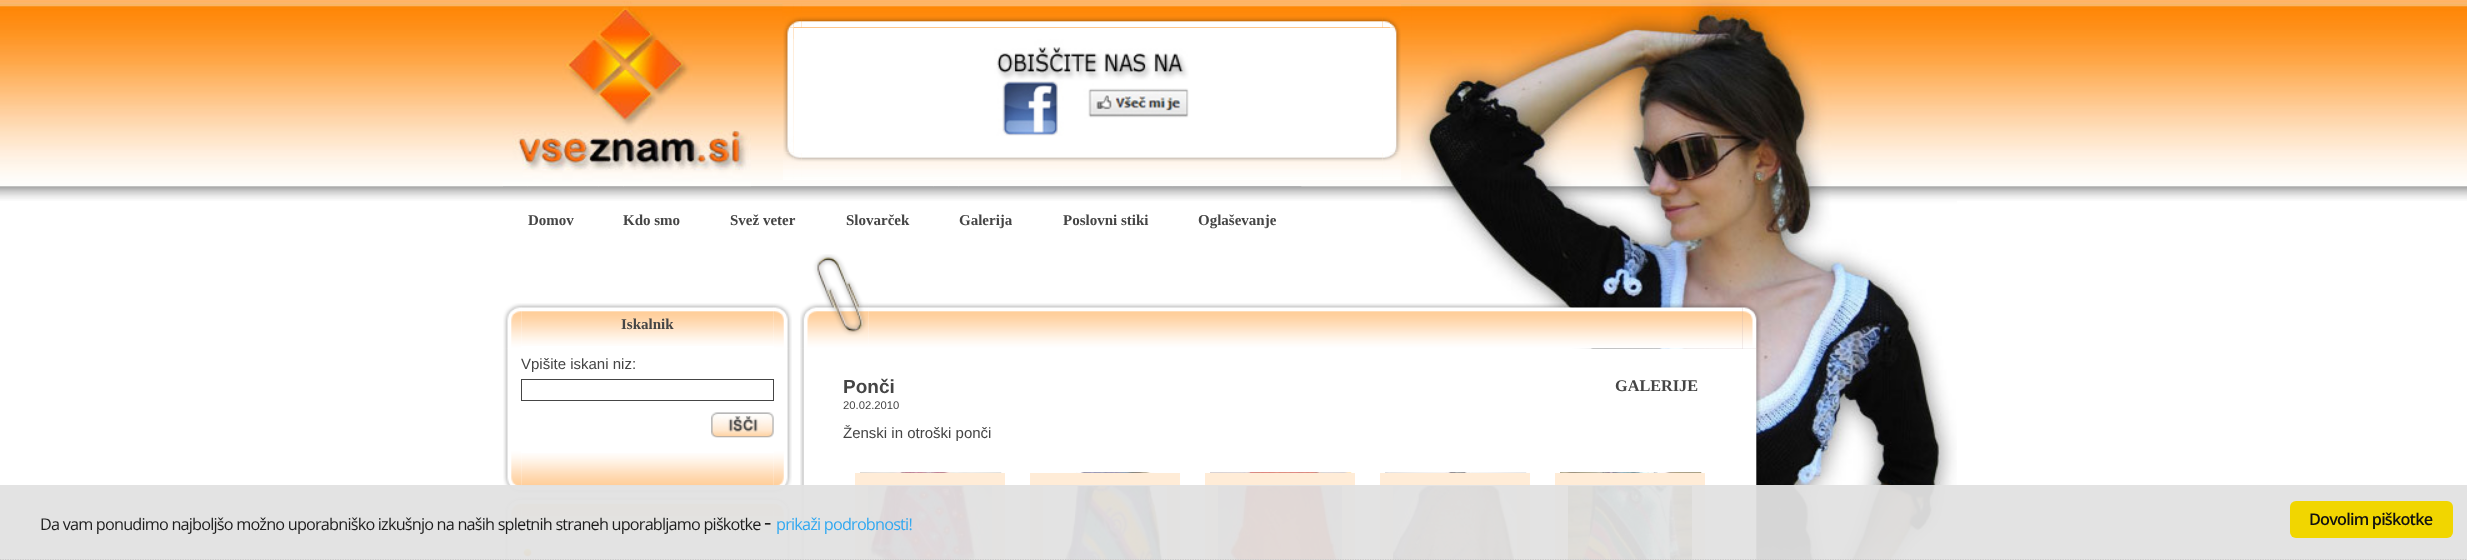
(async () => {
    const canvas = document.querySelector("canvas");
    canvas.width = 2467;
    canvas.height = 560;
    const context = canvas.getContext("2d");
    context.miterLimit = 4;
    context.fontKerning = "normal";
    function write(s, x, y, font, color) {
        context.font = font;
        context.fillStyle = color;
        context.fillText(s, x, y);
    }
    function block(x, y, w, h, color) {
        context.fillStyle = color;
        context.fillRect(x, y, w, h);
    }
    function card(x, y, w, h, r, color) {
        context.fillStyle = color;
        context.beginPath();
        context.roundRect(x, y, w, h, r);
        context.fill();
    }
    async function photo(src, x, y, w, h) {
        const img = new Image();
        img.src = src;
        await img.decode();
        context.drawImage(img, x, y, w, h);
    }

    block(0, 0, 2467, 560, "rgb(255, 255, 255)");
    await photo("media/1.png", 0, 0, 2467, 201);
    await photo("media/2.png", 1411, 0, 546, 560);
    await photo("media/3.png", 502, 1, 249, 186);
    await photo("media/4.png", 782, 3, 12, 25);
    await photo("media/5.png", 793, 3, 9, 25);
    await photo("media/6.png", 801, 3, 582, 25);
    await photo("media/7.png", 1382, 3, 8, 25);
    await photo("media/8.png", 1390, 3, 11, 25);
    await photo("media/9.png", 783, 27, 11, 126);
    block(794, 28, 596, 125, "rgb(255, 255, 255)");
    await photo("media/10.png", 793, 39, 396, 97);
    await photo("media/11.png", 1390, 27, 11, 126);
    await photo("media/12.png", 783, 152, 11, 28);
    await photo("media/13.png", 793, 153, 9, 27);
    await photo("media/14.png", 801, 153, 582, 27);
    await photo("media/15.png", 1382, 153, 8, 27);
    await photo("media/16.png", 1390, 152, 11, 28);
    await photo("media/17.png", 502, 186, 26, 1);
    await photo("media/18.png", 527, 186, 72, 1);
    write("Domov", 528, 225, "bold 15px Liberation Serif", "rgb(69, 69, 69)");
    await photo("media/19.png", 599, 186, 25, 1);
    block(624, 186, 106, 1, "rgb(185, 185, 185)");
    write("Kdo smo", 623, 225, "bold 15px Liberation Serif", "rgb(69, 69, 69)");
    await photo("media/20.png", 730, 186, 92, 1);
    write("Svež veter", 730, 225, "bold 15px Liberation Serif", "rgb(69, 69, 69)");
    await photo("media/21.png", 821, 186, 26, 1);
    await photo("media/22.png", 846, 186, 88, 1);
    write("Slovarček", 846, 225, "bold 15px Liberation Serif", "rgb(69, 69, 69)");
    await photo("media/23.png", 934, 186, 25, 1);
    await photo("media/24.png", 959, 186, 79, 1);
    write("Galerija", 959, 225, "bold 15px Liberation Serif", "rgb(69, 69, 69)");
    await photo("media/25.png", 1037, 186, 26, 1);
    await photo("media/26.png", 1062, 186, 111, 1);
    write("Poslovni stiki", 1063, 225, "bold 15px Liberation Serif", "rgb(69, 69, 69)");
    await photo("media/25.png", 1172, 186, 26, 1);
    await photo("media/27.png", 1197, 186, 105, 1);
    write("Oglaševanje", 1198, 225, "bold 15px Liberation Serif", "rgb(69, 69, 69)");
    await photo("media/28.png", 503, 303, 19, 46);
    await photo("media/29.png", 521, 303, 253, 43);
    write("Iskalnik", 621, 329, "bold 15px Liberation Serif", "rgb(69, 69, 69)");
    await photo("media/30.png", 773, 303, 19, 46);
    await photo("media/31.png", 503, 348, 5, 102);
    write("Vpišite iskani niz:", 521, 369, "15px Liberation Sans", "rgb(69, 69, 69)");
    context.strokeStyle = "rgb(69, 69, 69)";
    context.strokeRect(521.5, 379.5, 252, 21);
    await photo("media/32.png", 711, 412, 63, 26);
    await photo("media/33.png", 787, 348, 5, 102);
    await photo("media/34.png", 503, 450, 19, 44);
    await photo("media/35.png", 521, 453, 253, 41);
    await photo("media/36.png", 773, 450, 19, 44);
    await photo("media/37.png", 503, 496, 19, 46);
    await photo("media/38.png", 521, 496, 253, 42);
    await photo("media/39.png", 773, 496, 19, 46);
    await photo("media/40.png", 503, 541, 5, 19);
    await photo("media/41.png", 523, 548, 9, 9);
    await photo("media/42.png", 787, 541, 5, 19);
    await photo("media/43.png", 800, 254, 69, 95);
    await photo("media/44.png", 868, 303, 875, 46);
    await photo("media/45.png", 1742, 303, 19, 46);
    await photo("media/46.png", 800, 348, 4, 212);
    block(1553, 349, 190, 211, "rgb(255, 255, 255)");
    write("Ponči", 843, 393, "bold 19px Liberation Sans", "rgb(69, 69, 69)");
    write("GALERIJE", 1615, 391, "bold 16.25px Liberation Serif", "rgb(69, 69, 69)");
    write("20.02.2010", 843, 409, "11.25px Liberation Sans", "rgb(69, 69, 69)");
    write("Ženski in otroški ponči", 843, 438, "15px Liberation Sans", "rgb(69, 69, 69)");
    await photo("media/47.png", 860, 472, 142, 88);
    context.strokeStyle = "rgb(255, 236, 215)";
    context.lineWidth = 13;
    context.strokeRect(861.5, 479.5, 137, 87);
    await photo("media/48.png", 1055, 472, 121, 88);
    context.strokeRect(1036.5, 479.5, 137, 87);
    await photo("media/49.png", 1210, 472, 142, 88);
    context.strokeRect(1211.5, 479.5, 137, 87);
    await photo("media/50.png", 1385, 472, 142, 88);
    context.strokeRect(1386.5, 479.5, 137, 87);
    await photo("media/51.png", 1560, 472, 142, 88);
    context.strokeRect(1561.5, 479.5, 137, 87);
    await photo("media/52.png", 1743, 348, 18, 212);
    block(0, 485, 2467, 75, "rgba(226, 226, 226, 0.95)");
    context.beginPath();
    context.moveTo(0, 559.5);
    context.lineTo(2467.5, 559.5);
    context.strokeStyle = "rgb(204, 204, 204)";
    context.lineWidth = 1.2;
    context.setLineDash([1.25, 1.25]);
    context.stroke();
    context.letterSpacing = "-0.8px";
    write("Da vam ponudimo najboljšo možno uporabniško izkušnjo na naših spletnih straneh uporabljamo piškotke", 40, 530, "16.25px Open Sans", "rgb(29, 29, 29)");
    context.letterSpacing = "-1px";
    write("-", 764, 530, "23px Open Sans", "rgb(29, 29, 29)");
    context.letterSpacing = "-0.8px";
    write("prikaži podrobnosti!", 776, 530, "16.25px Open Sans", "rgb(49, 168, 240)");
    card(2290, 501, 163, 37, 6, "rgb(241, 214, 0)");
    write("Dovolim piškotke", 2309, 525, "600 16.25px Open Sans", "rgb(17, 17, 17)");
})();
